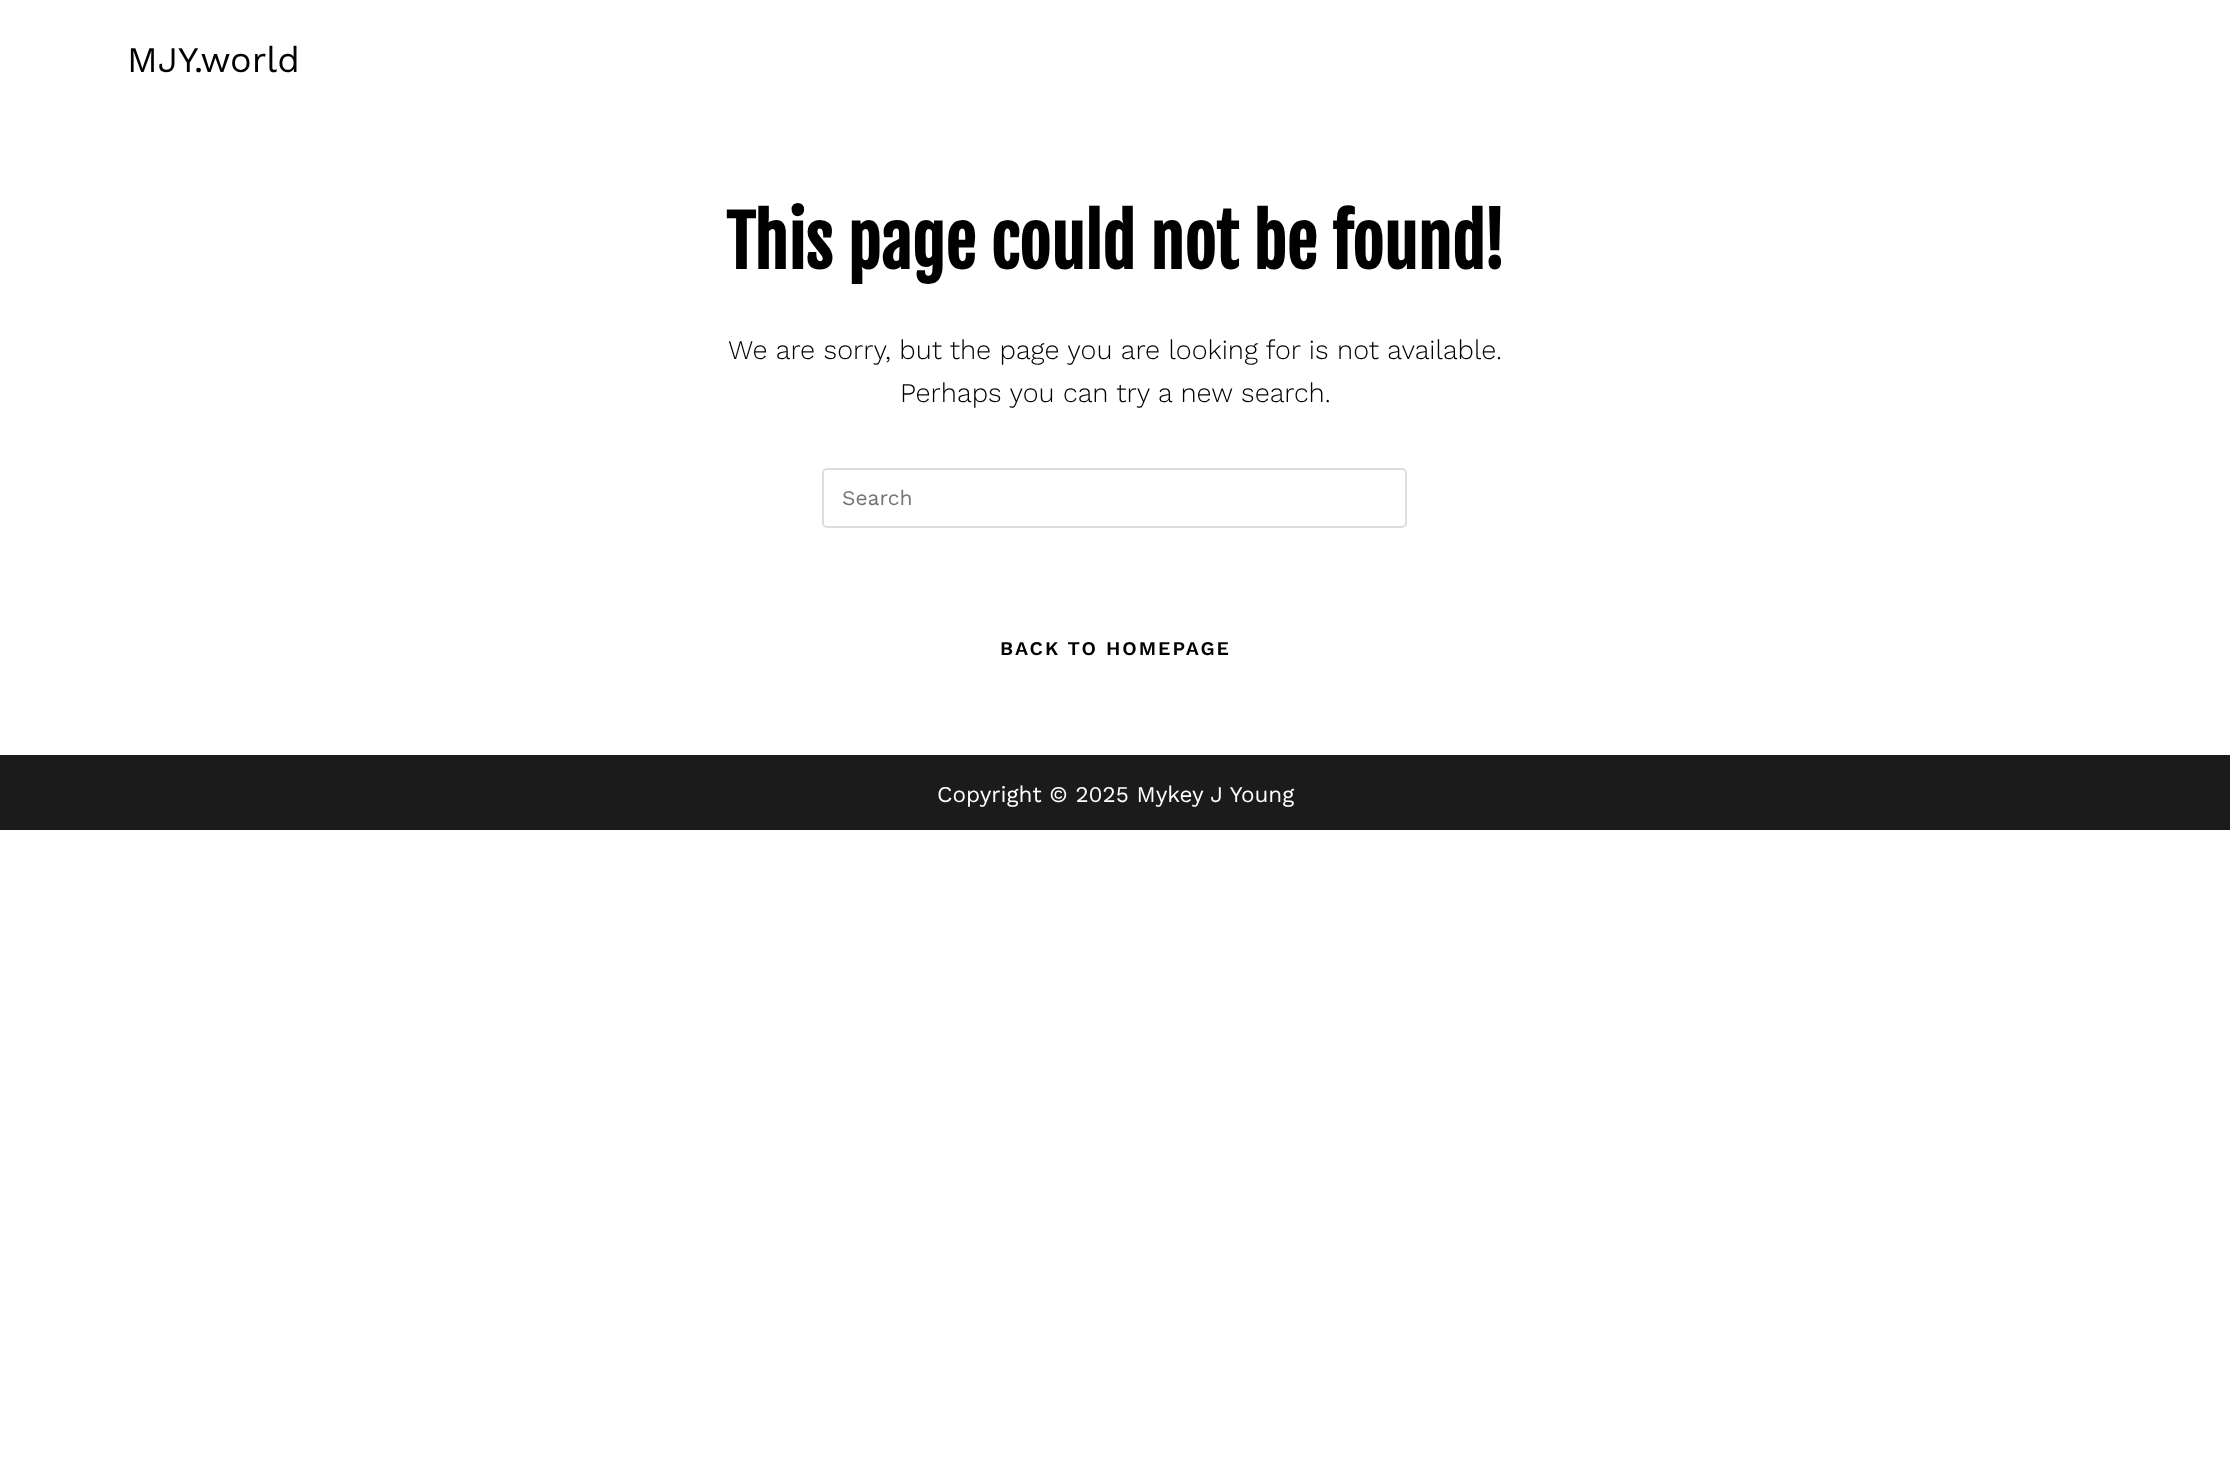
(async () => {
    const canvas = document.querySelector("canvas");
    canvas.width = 2230;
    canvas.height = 1465;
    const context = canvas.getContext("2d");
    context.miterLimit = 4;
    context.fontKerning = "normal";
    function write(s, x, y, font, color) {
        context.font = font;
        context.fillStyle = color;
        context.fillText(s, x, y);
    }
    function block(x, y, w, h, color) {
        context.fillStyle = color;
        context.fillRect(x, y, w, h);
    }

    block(0, 0, 2230, 1465, "rgb(255, 255, 255)");
    write("MJY.world", 127, 72, "36px Work Sans", "rgb(0, 0, 0)");
    write("This page could not be found!", 726, 269, "bold 69px Fjalla One", "rgb(0, 0, 0)");
    write("We are sorry, but the page you are looking for is not available.", 728, 359, "300 27px Work Sans", "rgb(0, 0, 0)");
    write("Perhaps you can try a new search.", 900, 402, "300 27px Work Sans", "rgb(0, 0, 0)");
    context.beginPath();
    context.roundRect(823, 469, 583, 58, 4);
    context.strokeStyle = "rgb(221, 221, 221)";
    context.lineWidth = 2;
    context.stroke();
    write("Search", 842, 505, "21px Work Sans", "rgb(117, 117, 117)");
    context.letterSpacing = "2px";
    write("BACK TO HOMEPAGE", 1000, 655, "600 19.5px Work Sans", "rgb(0, 0, 0)");
    block(0, 755, 2230, 75, "rgb(27, 27, 27)");
    context.letterSpacing = "0px";
    write("Copyright © 2025 Mykey J Young", 937, 802, "22.5px Work Sans", "rgb(255, 255, 255)");
})();
